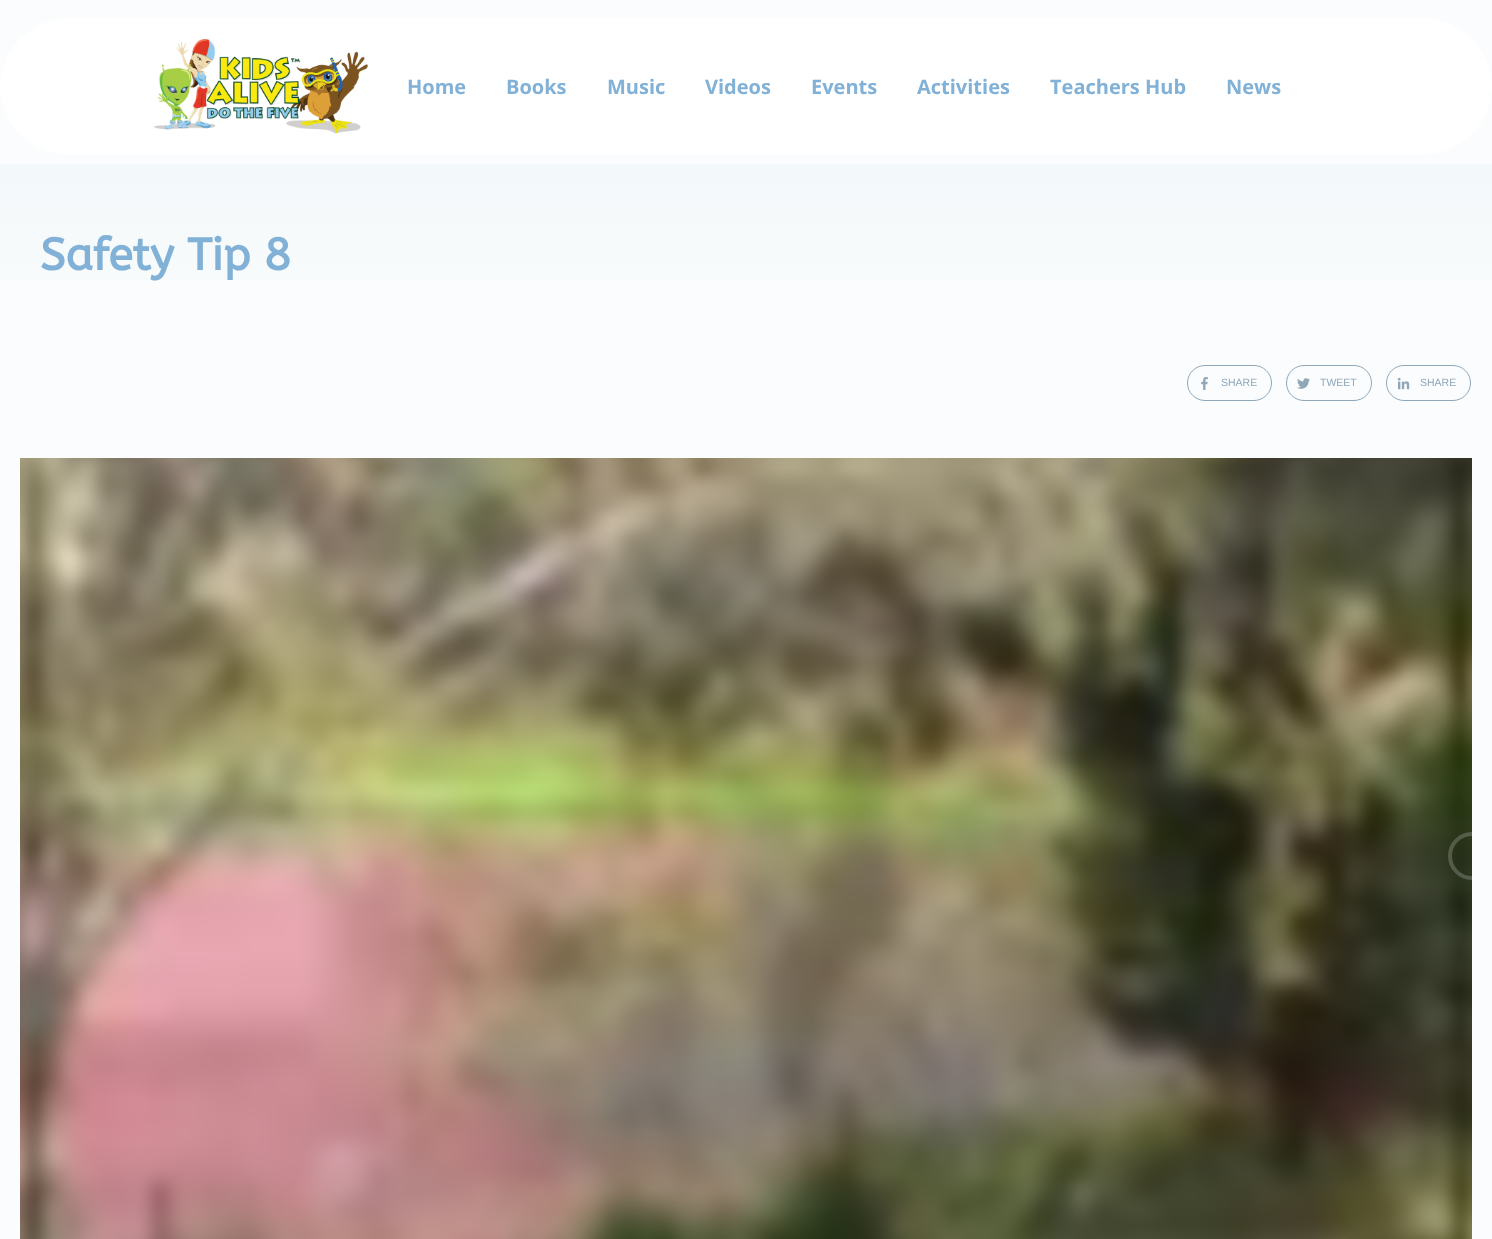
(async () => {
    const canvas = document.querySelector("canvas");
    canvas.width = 1492;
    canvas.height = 1239;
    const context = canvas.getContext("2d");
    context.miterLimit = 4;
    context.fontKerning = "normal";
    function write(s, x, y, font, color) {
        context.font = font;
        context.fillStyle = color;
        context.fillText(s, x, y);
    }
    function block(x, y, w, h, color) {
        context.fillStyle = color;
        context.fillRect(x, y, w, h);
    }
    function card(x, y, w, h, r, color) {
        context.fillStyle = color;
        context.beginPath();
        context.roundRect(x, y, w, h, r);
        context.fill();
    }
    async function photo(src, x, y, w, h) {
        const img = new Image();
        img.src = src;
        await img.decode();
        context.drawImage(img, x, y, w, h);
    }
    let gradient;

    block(0, 0, 1492, 1239, "rgb(250, 252, 253)");
    context.beginPath();
    context.roundRect(0.5, 18.5, 1491, 136, 68);
    context.strokeStyle = "rgb(255, 255, 255)";
    context.stroke();
    card(1, 19, 1490, 135, 67.5, "rgba(255, 255, 255, 0.9)");
    await photo("media/1.png", 154, 39, 214, 95);
    write("Home", 407, 94, "bold 20px Open Sans", "rgb(129, 177, 214)");
    write("Books", 506, 94, "bold 20px Open Sans", "rgb(129, 177, 214)");
    write("Music", 607, 94, "bold 20px Open Sans", "rgb(129, 177, 214)");
    write("Videos", 705, 94, "bold 20px Open Sans", "rgb(129, 177, 214)");
    write("Events", 811, 94, "bold 20px Open Sans", "rgb(129, 177, 214)");
    write("Activities", 917, 94, "bold 20px Open Sans", "rgb(129, 177, 214)");
    write("Teachers Hub", 1050, 94, "bold 20px Open Sans", "rgb(129, 177, 214)");
    write("News", 1226, 94, "bold 20px Open Sans", "rgb(129, 177, 214)");
    gradient = context.createLinearGradient(746, 164, 746, 319);
    gradient.addColorStop(0, "rgb(243, 248, 250)");
    gradient.addColorStop(1, "rgb(249, 252, 252)");
    context.fillStyle = gradient;
    context.fillRect(0, 164, 1492, 116);
    write("Safety Tip 8", 40, 270, "bold 45px ABeeZee", "rgb(129, 177, 214)");
    context.beginPath();
    context.roundRect(1187.5, 365.5, 84, 35, 17.5);
    context.strokeStyle = "rgb(144, 167, 184)";
    context.stroke();
    await photo("media/2.png", 1201, 377, 7, 13);
    write("SHARE", 1221, 386, "10.5px Liberation Sans", "rgb(144, 167, 184)");
    context.beginPath();
    context.roundRect(1286.5, 365.5, 85, 35, 17.5);
    context.stroke();
    await photo("media/3.png", 1297, 378, 13, 11);
    write("TWEET", 1320, 386, "10.5px Liberation Sans", "rgb(144, 167, 184)");
    context.beginPath();
    context.roundRect(1386.5, 365.5, 84, 35, 17.5);
    context.stroke();
    await photo("media/4.png", 1397, 377, 13, 13);
    write("SHARE", 1420, 386, "10.5px Liberation Sans", "rgb(144, 167, 184)");
    await photo("media/5.png", 20, 458, 1452, 781);
})();
